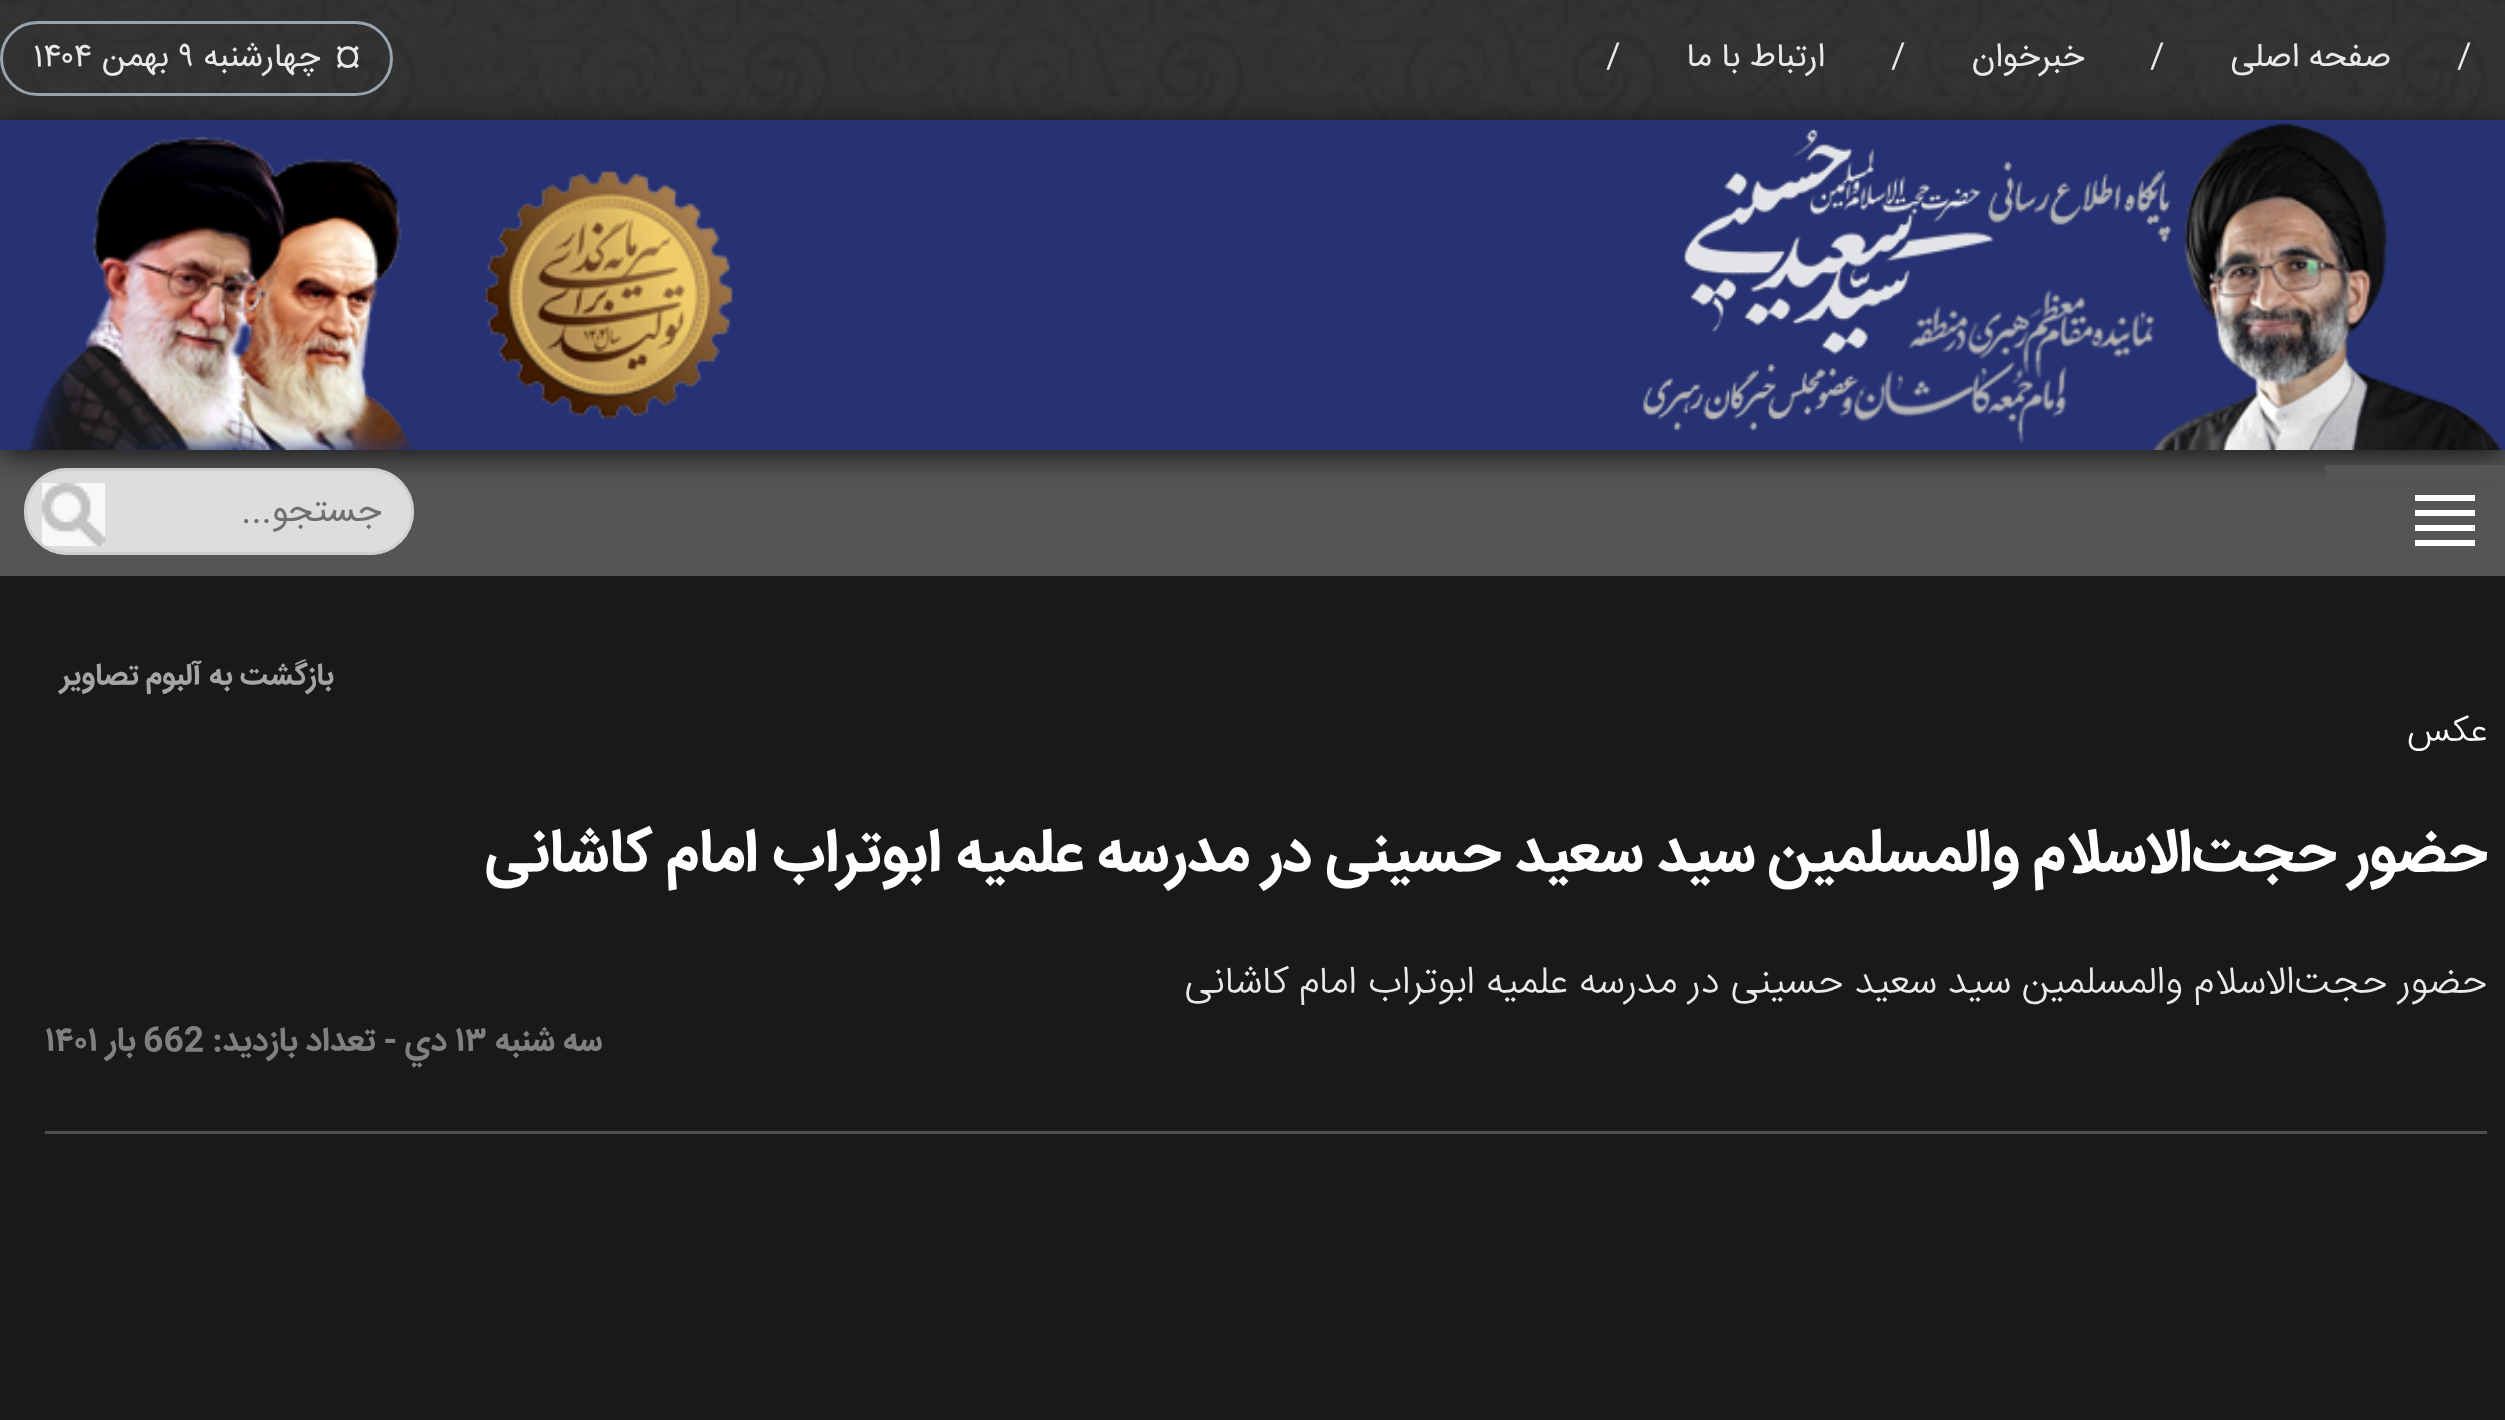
(async () => {
    const canvas = document.querySelector("canvas");
    canvas.width = 2505;
    canvas.height = 1420;
    const context = canvas.getContext("2d");
    context.miterLimit = 4;
    context.fontKerning = "normal";
    function write(s, x, y, font, color) {
        context.font = font;
        context.fillStyle = color;
        context.fillText(s, x, y);
    }
    function block(x, y, w, h, color) {
        context.fillStyle = color;
        context.fillRect(x, y, w, h);
    }
    function card(x, y, w, h, r, color) {
        context.fillStyle = color;
        context.beginPath();
        context.roundRect(x, y, w, h, r);
        context.fill();
    }
    async function photo(src, x, y, w, h) {
        const img = new Image();
        img.src = src;
        await img.decode();
        context.drawImage(img, x, y, w, h);
    }

    block(0, 0, 2505, 1420, "rgb(85, 85, 85)");
    await photo("media/1.png", 0, 0, 2505, 120);
    write("/", 2457, 66, "33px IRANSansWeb", "rgb(234, 234, 234)");
    context.direction = "rtl";
    write("صفحه اصلی", 2391, 66, "33px IRANSansWeb", "rgb(234, 234, 234)");
    context.direction = "ltr";
    write("/", 2150, 66, "33px IRANSansWeb", "rgb(234, 234, 234)");
    context.direction = "rtl";
    write("خبرخوان", 2084, 66, "33px IRANSansWeb", "rgb(234, 234, 234)");
    context.direction = "ltr";
    write("/", 1891, 66, "33px IRANSansWeb", "rgb(234, 234, 234)");
    context.direction = "rtl";
    write("ارتباط با ما", 1825, 66, "33px IRANSansWeb", "rgb(234, 234, 234)");
    context.direction = "ltr";
    write("/", 1606, 66, "33px IRANSansWeb", "rgb(234, 234, 234)");
    context.beginPath();
    context.roundRect(1.5, 22.5, 390, 72, 36);
    context.strokeStyle = "rgb(152, 164, 175)";
    context.lineWidth = 3;
    context.stroke();
    write("¤", 335, 66, "33px IRANSansWeb", "rgb(234, 234, 234)");
    context.direction = "rtl";
    write("چهارشنبه", 320, 66, "33px IRANSansWeb", "rgb(234, 234, 234)");
    context.direction = "ltr";
    write("۹", 178, 66, "33px IRANSansWeb", "rgb(234, 234, 234)");
    context.direction = "rtl";
    write("بهمن", 169, 66, "33px IRANSansWeb", "rgb(234, 234, 234)");
    context.direction = "ltr";
    write("۱۴۰۴", 33, 66, "33px IRANSansWeb", "rgb(234, 234, 234)");
    context.fillStyle = "rgba(0, 0, 0, 0.7)";
    context.filter = "blur(15px)";
    context.beginPath();
    context.rect(0, 126, 2505, 330);
    context.fill();
    context.filter = "none";
    block(0, 120, 2505, 330, "rgb(38, 50, 115)");
    await photo("media/2.png", 1642, 123, 860, 327);
    await photo("media/3.png", 29, 136, 704, 314);
    block(2325, 465, 180, 17, "rgb(85, 85, 85)");
    block(2415, 495, 60, 6, "rgb(255, 255, 255)");
    block(2415, 510, 60, 6, "rgb(255, 255, 255)");
    block(2415, 525, 60, 6, "rgb(255, 255, 255)");
    block(2415, 540, 60, 6, "rgb(255, 255, 255)");
    card(24, 468, 390, 87, 43.5, "rgba(255, 255, 255, 0.8)");
    await photo("media/4.png", 42, 483, 63, 63);
    context.beginPath();
    context.roundRect(25.5, 469.5, 387, 84, 42);
    context.strokeStyle = "rgba(204, 204, 204, 0.8)";
    context.stroke();
    context.direction = "rtl";
    write("جستجو...", 381, 521, "36px IRANSansWeb", "rgb(111, 111, 111)");
    block(0, 576, 2505, 844, "rgb(25, 25, 25)");
    write("بازگشت به آلبوم تصاویر", 334, 684, "bold 30px IRANSansWeb", "rgb(165, 165, 165)");
    write("عکس", 2487, 741, "300 36px IRANSansWeb", "rgb(255, 255, 255)");
    write("حضور حجت‌الاسلام والمسلمین سید سعید حسینی در مدرسه علمیه ابوتراب امام کاشانی", 2487, 870, "bold 60px IRANSansWeb", "rgb(255, 255, 255)");
    write("حضور حجت‌الاسلام والمسلمین سید سعید حسینی در مدرسه علمیه ابوتراب امام کاشانی", 2487, 993, "300 39px IRANSansWeb", "rgb(234, 234, 234)");
    block(45, 1131, 2442, 3, "rgb(78, 78, 78)");
    write("سه شنبه", 602, 1050, "bold 33px IRANSansWeb", "rgb(128, 128, 128)");
    context.direction = "ltr";
    write("۱۳", 455, 1050, "bold 33px IRANSansWeb", "rgb(128, 128, 128)");
    context.direction = "rtl";
    write("دي - تعداد بازدید:", 447, 1050, "bold 33px IRANSansWeb", "rgb(128, 128, 128)");
    context.direction = "ltr";
    write("662", 143, 1050, "bold 33px IRANSansWeb", "rgb(128, 128, 128)");
    context.direction = "rtl";
    write("بار", 136, 1050, "bold 33px IRANSansWeb", "rgb(128, 128, 128)");
    context.direction = "ltr";
    write("۱۴۰۱", 45, 1050, "bold 33px IRANSansWeb", "rgb(128, 128, 128)");
})();
